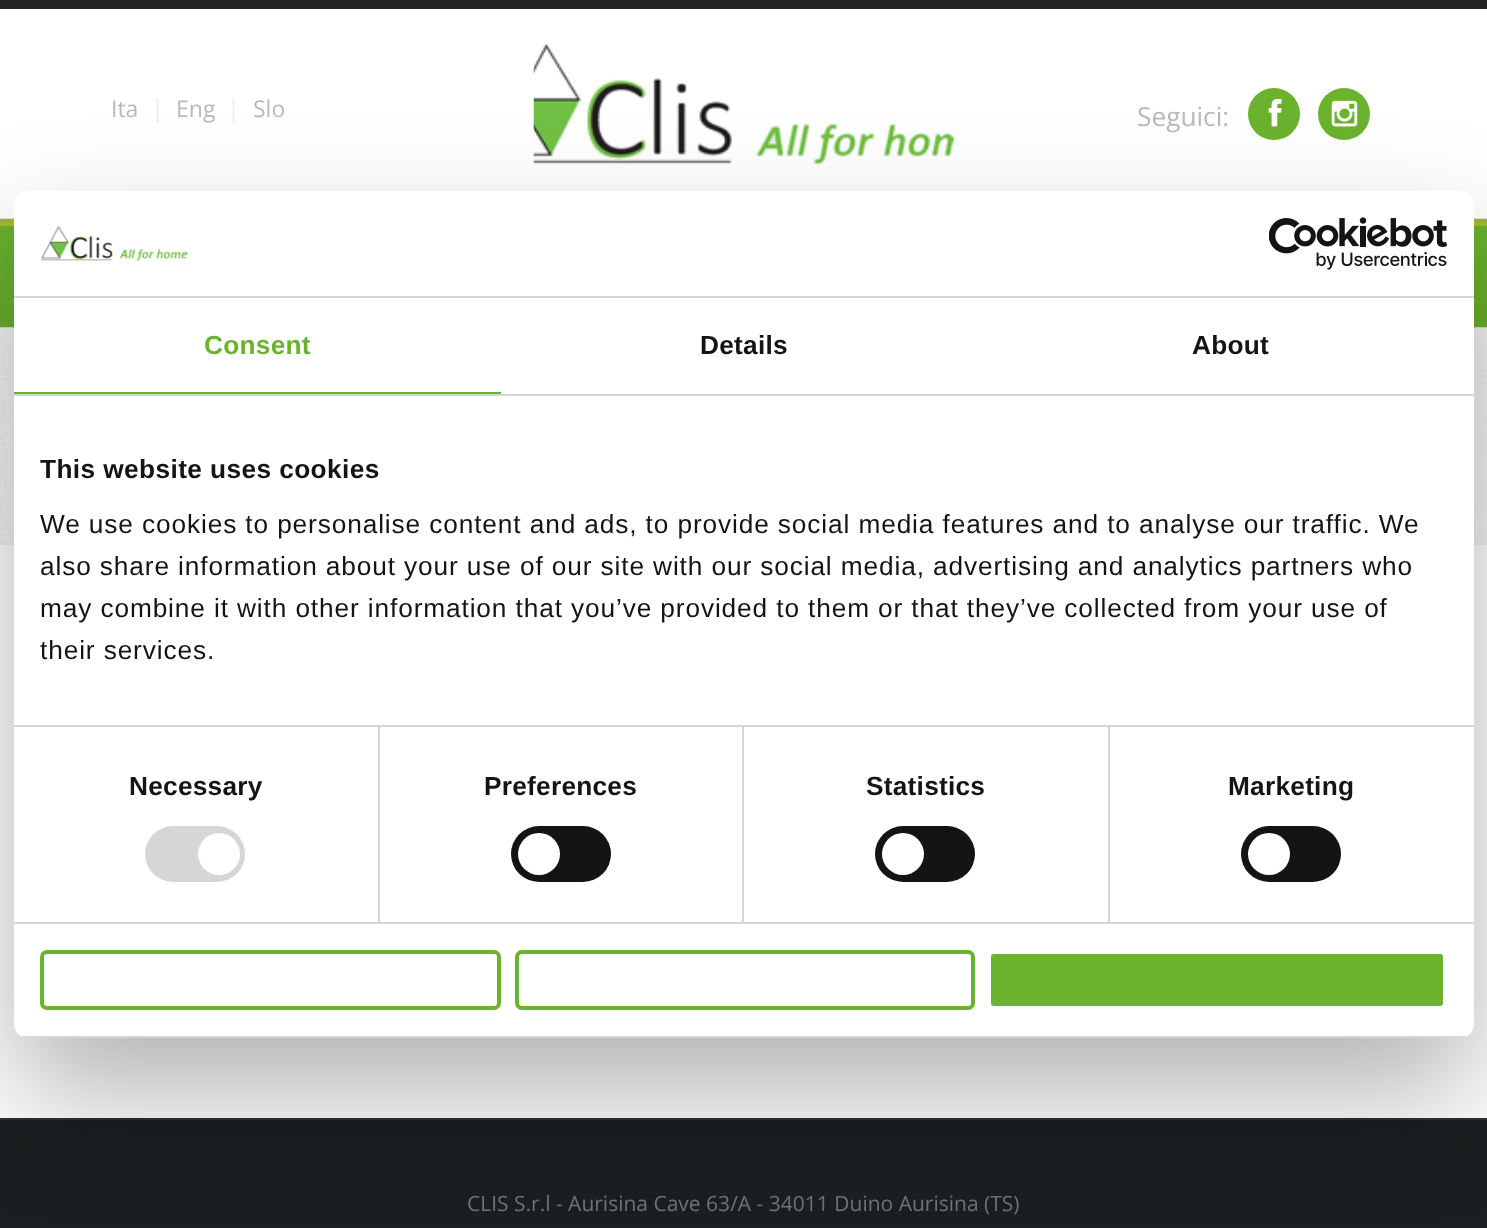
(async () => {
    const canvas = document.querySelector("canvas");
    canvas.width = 1487;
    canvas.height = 1228;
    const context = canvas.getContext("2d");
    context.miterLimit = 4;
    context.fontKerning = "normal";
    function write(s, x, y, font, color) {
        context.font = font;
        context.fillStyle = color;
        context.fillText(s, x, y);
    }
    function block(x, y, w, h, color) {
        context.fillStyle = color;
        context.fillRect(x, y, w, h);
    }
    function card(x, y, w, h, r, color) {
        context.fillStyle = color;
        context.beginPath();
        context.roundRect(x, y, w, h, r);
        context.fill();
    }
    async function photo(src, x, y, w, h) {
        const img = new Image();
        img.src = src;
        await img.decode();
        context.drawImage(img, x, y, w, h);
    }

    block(0, 0, 1487, 1228, "rgb(255, 255, 255)");
    block(0, 0, 1487, 9, "rgb(33, 36, 39)");
    write("Ita", 111, 117, "23px Open Sans", "rgb(185, 185, 185)");
    write("|", 151, 117, "24px Open Sans", "rgb(238, 238, 238)");
    write("Eng", 176, 117, "23px Open Sans", "rgb(185, 185, 185)");
    write("|", 227, 117, "24px Open Sans", "rgb(238, 238, 238)");
    write("Slo", 253, 117, "23px Open Sans", "rgb(185, 185, 185)");
    await photo("media/1.png", 533, 43, 421, 122);
    write("Seguici:", 1137, 126, "26.25px Open Sans", "rgb(185, 185, 185)");
    context.fillStyle = "rgb(107, 178, 46)";
    context.beginPath();
    context.arc(1274, 114, 26, 0, Math.PI * 2);
    context.fill();
    await photo("media/2.png", 1268, 99, 14, 28);
    context.beginPath();
    context.arc(1344, 114, 26, 0, Math.PI * 2);
    context.fill();
    await photo("media/3.png", 1331, 100, 27, 27);
    await photo("media/5.png", 0, 327, 1487, 216);
    await photo("media/4.png", 0, 218, 1487, 110);
    block(0, 543, 1487, 2, "rgb(240, 240, 240)");
    block(0, 1120, 1487, 108, "rgb(28, 31, 33)");
    block(0, 1118, 1487, 2, "rgb(46, 49, 50)");
    write("CLIS S.r.l - Aurisina Cave 63/A - 34011 Duino Aurisina (TS)", 467, 1211, "21px Open Sans", "rgb(114, 114, 114)");
    context.fillStyle = "rgba(0, 0, 0, 0.3)";
    context.filter = "blur(59.5px)";
    context.beginPath();
    context.roundRect(14, 247, 1460, 847, 14);
    context.fill();
    context.filter = "none";
    card(14, 191, 1460, 847, 14, "rgb(255, 255, 255)");
    block(14, 296, 1460, 2, "rgb(214, 214, 214)");
    await photo("media/6.png", 40, 226, 148, 35);
    await photo("media/7.png", 1269, 217, 178, 53);
    block(14, 394, 1460, 2, "rgb(214, 214, 214)");
    block(14, 392, 487, 2, "rgb(107, 178, 46)");
    context.letterSpacing = "0.25px";
    write("Consent", 204, 354, "bold 26.25px Liberation Sans", "rgb(107, 178, 46)");
    write("Details", 700, 354, "bold 26.25px Liberation Sans", "rgb(20, 20, 20)");
    write("About", 1192, 354, "bold 26.25px Liberation Sans", "rgb(20, 20, 20)");
    block(378, 726, 2, 196, "rgb(214, 214, 214)");
    block(742, 726, 2, 196, "rgb(214, 214, 214)");
    block(1108, 726, 2, 196, "rgb(214, 214, 214)");
    block(14, 725, 1460, 2, "rgb(214, 214, 214)");
    context.letterSpacing = "0.4px";
    write("This website uses cookies", 40, 478, "bold 26.25px Liberation Sans", "rgb(20, 20, 20)");
    context.letterSpacing = "0.88px";
    write("We use cookies to personalise content and ads, to provide social media features and to analyse our traffic. We", 40, 533, "26.25px Liberation Sans", "rgb(20, 20, 20)");
    write("also share information about your use of our site with our social media, advertising and analytics partners who", 40, 575, "26.25px Liberation Sans", "rgb(20, 20, 20)");
    write("may combine it with other information that you’ve provided to them or that they’ve collected from your use of", 40, 617, "26.25px Liberation Sans", "rgb(20, 20, 20)");
    write("their services.", 40, 659, "26.25px Liberation Sans", "rgb(20, 20, 20)");
    block(14, 922, 1460, 2, "rgb(214, 214, 214)");
    context.letterSpacing = "0.25px";
    write("Necessary", 129, 795, "bold 26.25px Liberation Sans", "rgb(20, 20, 20)");
    card(145, 826, 100, 56, 28, "rgb(214, 214, 214)");
    context.fillStyle = "rgb(255, 255, 255)";
    context.beginPath();
    context.arc(219, 854, 21, 0, Math.PI * 2);
    context.fill();
    write("Preferences", 484, 795, "bold 26.25px Liberation Sans", "rgb(20, 20, 20)");
    card(511, 826, 100, 56, 28, "rgb(20, 20, 20)");
    context.fillStyle = "rgb(255, 255, 255)";
    context.beginPath();
    context.arc(539, 854, 21, 0, Math.PI * 2);
    context.fill();
    write("Statistics", 866, 795, "bold 26.25px Liberation Sans", "rgb(20, 20, 20)");
    card(875, 826, 100, 56, 28, "rgb(20, 20, 20)");
    context.fillStyle = "rgb(255, 255, 255)";
    context.beginPath();
    context.arc(903, 854, 21, 0, Math.PI * 2);
    context.fill();
    write("Marketing", 1228, 795, "bold 26.25px Liberation Sans", "rgb(20, 20, 20)");
    card(1241, 826, 100, 56, 28, "rgb(20, 20, 20)");
    context.fillStyle = "rgb(255, 255, 255)";
    context.beginPath();
    context.arc(1269, 854, 21, 0, Math.PI * 2);
    context.fill();
    context.save();
    context.beginPath();
    context.roundRect(14, 191, 1460, 847, 14);
    context.clip();
    block(14, 1036, 1460, 2, "rgb(214, 214, 214)");
    context.restore();
    context.beginPath();
    context.roundRect(42, 952, 457, 56, 5);
    context.strokeStyle = "rgb(107, 178, 46)";
    context.lineWidth = 4;
    context.stroke();
    context.beginPath();
    context.roundRect(517, 952, 456, 56, 5);
    context.stroke();
    context.fillStyle = "rgb(107, 178, 46)";
    context.beginPath();
    context.roundRect(989, 952, 456, 56, 5);
    context.fill();
    context.strokeStyle = "rgb(255, 255, 255)";
    context.stroke();
})();
